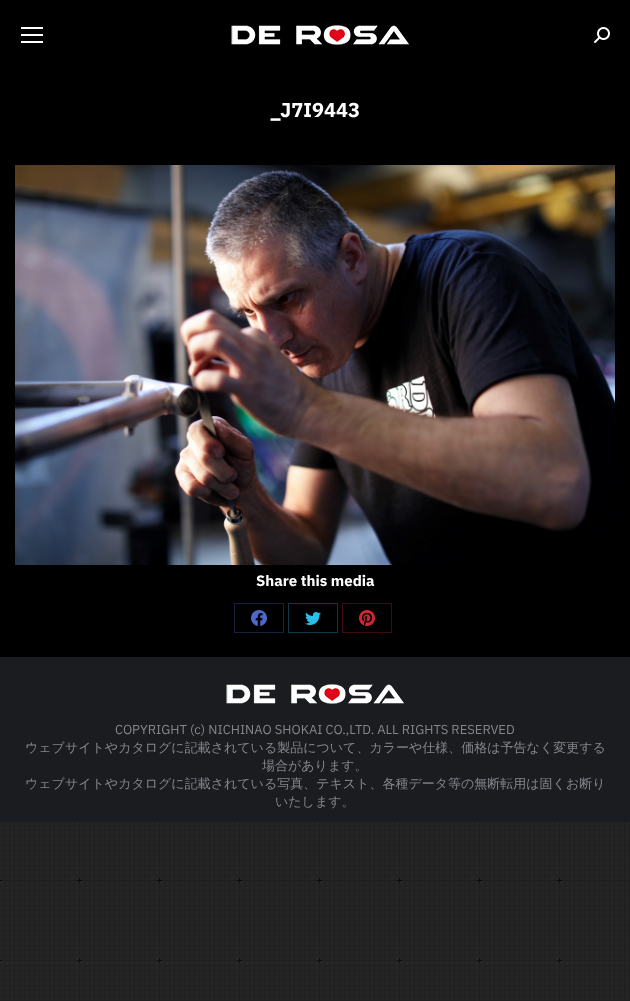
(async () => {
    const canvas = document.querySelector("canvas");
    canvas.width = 630;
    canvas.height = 1001;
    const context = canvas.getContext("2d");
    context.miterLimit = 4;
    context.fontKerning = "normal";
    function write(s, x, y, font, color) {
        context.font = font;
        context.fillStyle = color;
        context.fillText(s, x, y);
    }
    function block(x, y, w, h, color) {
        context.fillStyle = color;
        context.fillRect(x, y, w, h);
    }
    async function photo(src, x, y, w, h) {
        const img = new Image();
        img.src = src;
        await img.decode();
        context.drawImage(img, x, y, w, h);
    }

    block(0, 0, 630, 1001, "rgb(0, 0, 0)");
    await photo("media/1.png", 0, 822, 630, 179);
    block(21, 27, 22, 2, "rgb(255, 255, 255)");
    block(21, 34, 22, 2, "rgb(255, 255, 255)");
    block(21, 41, 22, 2, "rgb(255, 255, 255)");
    await photo("media/2.png", 231, 25, 178, 20);
    await photo("media/3.png", 594, 27, 16, 16);
    write("_J7I9443", 270, 117, "bold 20px IBM Plex Sans", "rgb(255, 255, 255)");
    await photo("media/4.png", 15, 165, 600, 400);
    write("Share this media", 256, 586, "bold 15px IBM Plex Sans", "rgb(255, 255, 255)");
    context.strokeStyle = "rgb(23, 32, 60)";
    context.strokeRect(234.5, 603.5, 49, 29);
    await photo("media/5.png", 251, 610, 16, 16);
    context.strokeStyle = "rgb(13, 57, 71)";
    context.strokeRect(288.5, 603.5, 49, 29);
    await photo("media/6.png", 305, 612, 16, 13);
    context.strokeStyle = "rgb(62, 12, 16)";
    context.strokeRect(342.5, 603.5, 49, 29);
    await photo("media/7.png", 359, 610, 16, 16);
    block(0, 657, 630, 165, "rgb(26, 28, 32)");
    await photo("media/8.png", 226, 684, 178, 20);
    write("COPYRIGHT (c) NICHINAO SHOKAI CO.,LTD. ALL RIGHTS RESERVED", 115, 734, "13px IBM Plex Sans", "rgb(133, 134, 140)");
    write("ウェブサイトやカタログに記載されている製品について、カラーや仕様、価格は予告なく変更する", 25, 752, "500 13px WenQuanYi Zen Hei", "rgb(133, 134, 140)");
    write("場合があります。", 262, 770, "500 13px WenQuanYi Zen Hei", "rgb(133, 134, 140)");
    write("ウェブサイトやカタログに記載されている写真、テキスト、各種データ等の無断転用は固くお断り", 25, 788, "500 13px WenQuanYi Zen Hei", "rgb(133, 134, 140)");
    write("いたします。", 275, 806, "500 13px WenQuanYi Zen Hei", "rgb(133, 134, 140)");
})();
